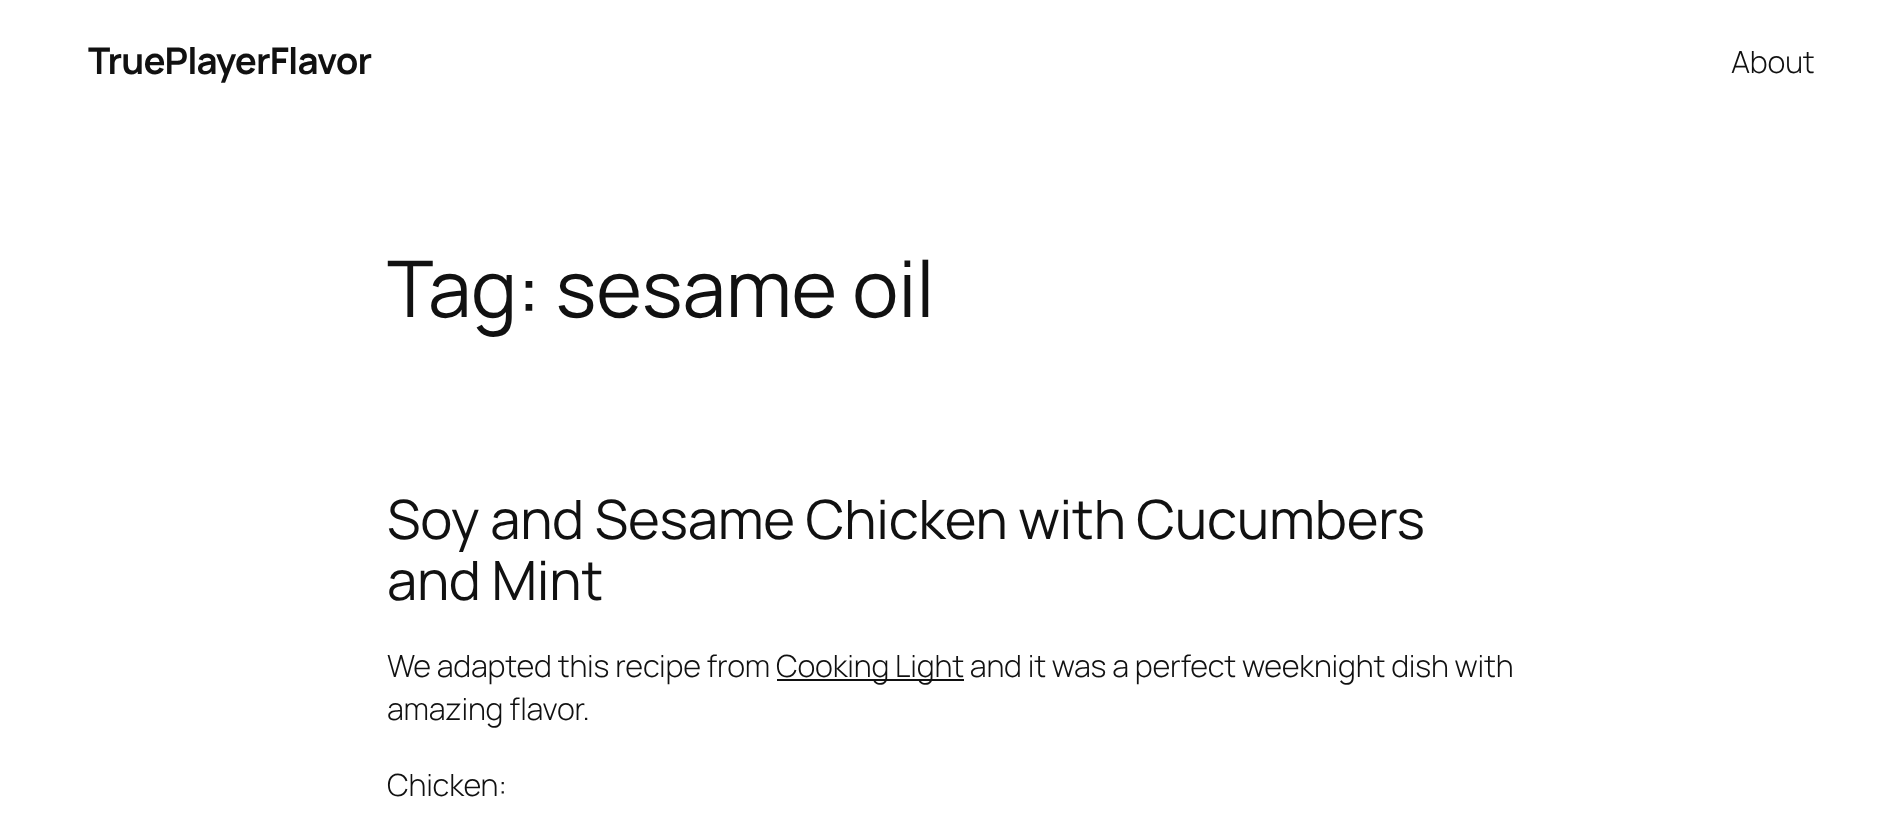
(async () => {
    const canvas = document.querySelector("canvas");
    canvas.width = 1901;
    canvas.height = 828;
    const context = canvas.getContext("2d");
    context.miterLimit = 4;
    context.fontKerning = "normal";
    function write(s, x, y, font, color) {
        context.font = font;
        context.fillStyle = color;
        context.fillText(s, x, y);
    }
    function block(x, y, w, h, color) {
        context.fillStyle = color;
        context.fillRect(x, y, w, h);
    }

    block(0, 0, 1901, 828, "rgb(255, 255, 255)");
    context.letterSpacing = "-0.9px";
    write("TruePlayerFlavor", 88, 74, "bold 36.75px Manrope", "rgb(17, 17, 17)");
    context.letterSpacing = "-0.18px";
    write("About", 1731, 73, "300 30.6px Manrope", "rgb(17, 17, 17)");
    write("Tag: sesame oil", 387, 317, "78px Manrope", "rgb(17, 17, 17)");
    write("Soy and Sesame Chicken with Cucumbers", 387, 539, "54.25px Manrope", "rgb(17, 17, 17)");
    write("and Mint", 387, 600, "54.25px Manrope", "rgb(17, 17, 17)");
    write("We adapted this recipe from", 387, 677, "300 30.6px Manrope", "rgb(17, 17, 17)");
    block(777, 679, 187, 2, "rgb(17, 17, 17)");
    write("Cooking Light and it was a perfect weeknight dish with", 776, 677, "300 30.6px Manrope", "rgb(17, 17, 17)");
    write("amazing flavor.", 387, 720, "300 30.6px Manrope", "rgb(17, 17, 17)");
    write("Chicken:", 387, 796, "300 30.6px Manrope", "rgb(17, 17, 17)");
})();
